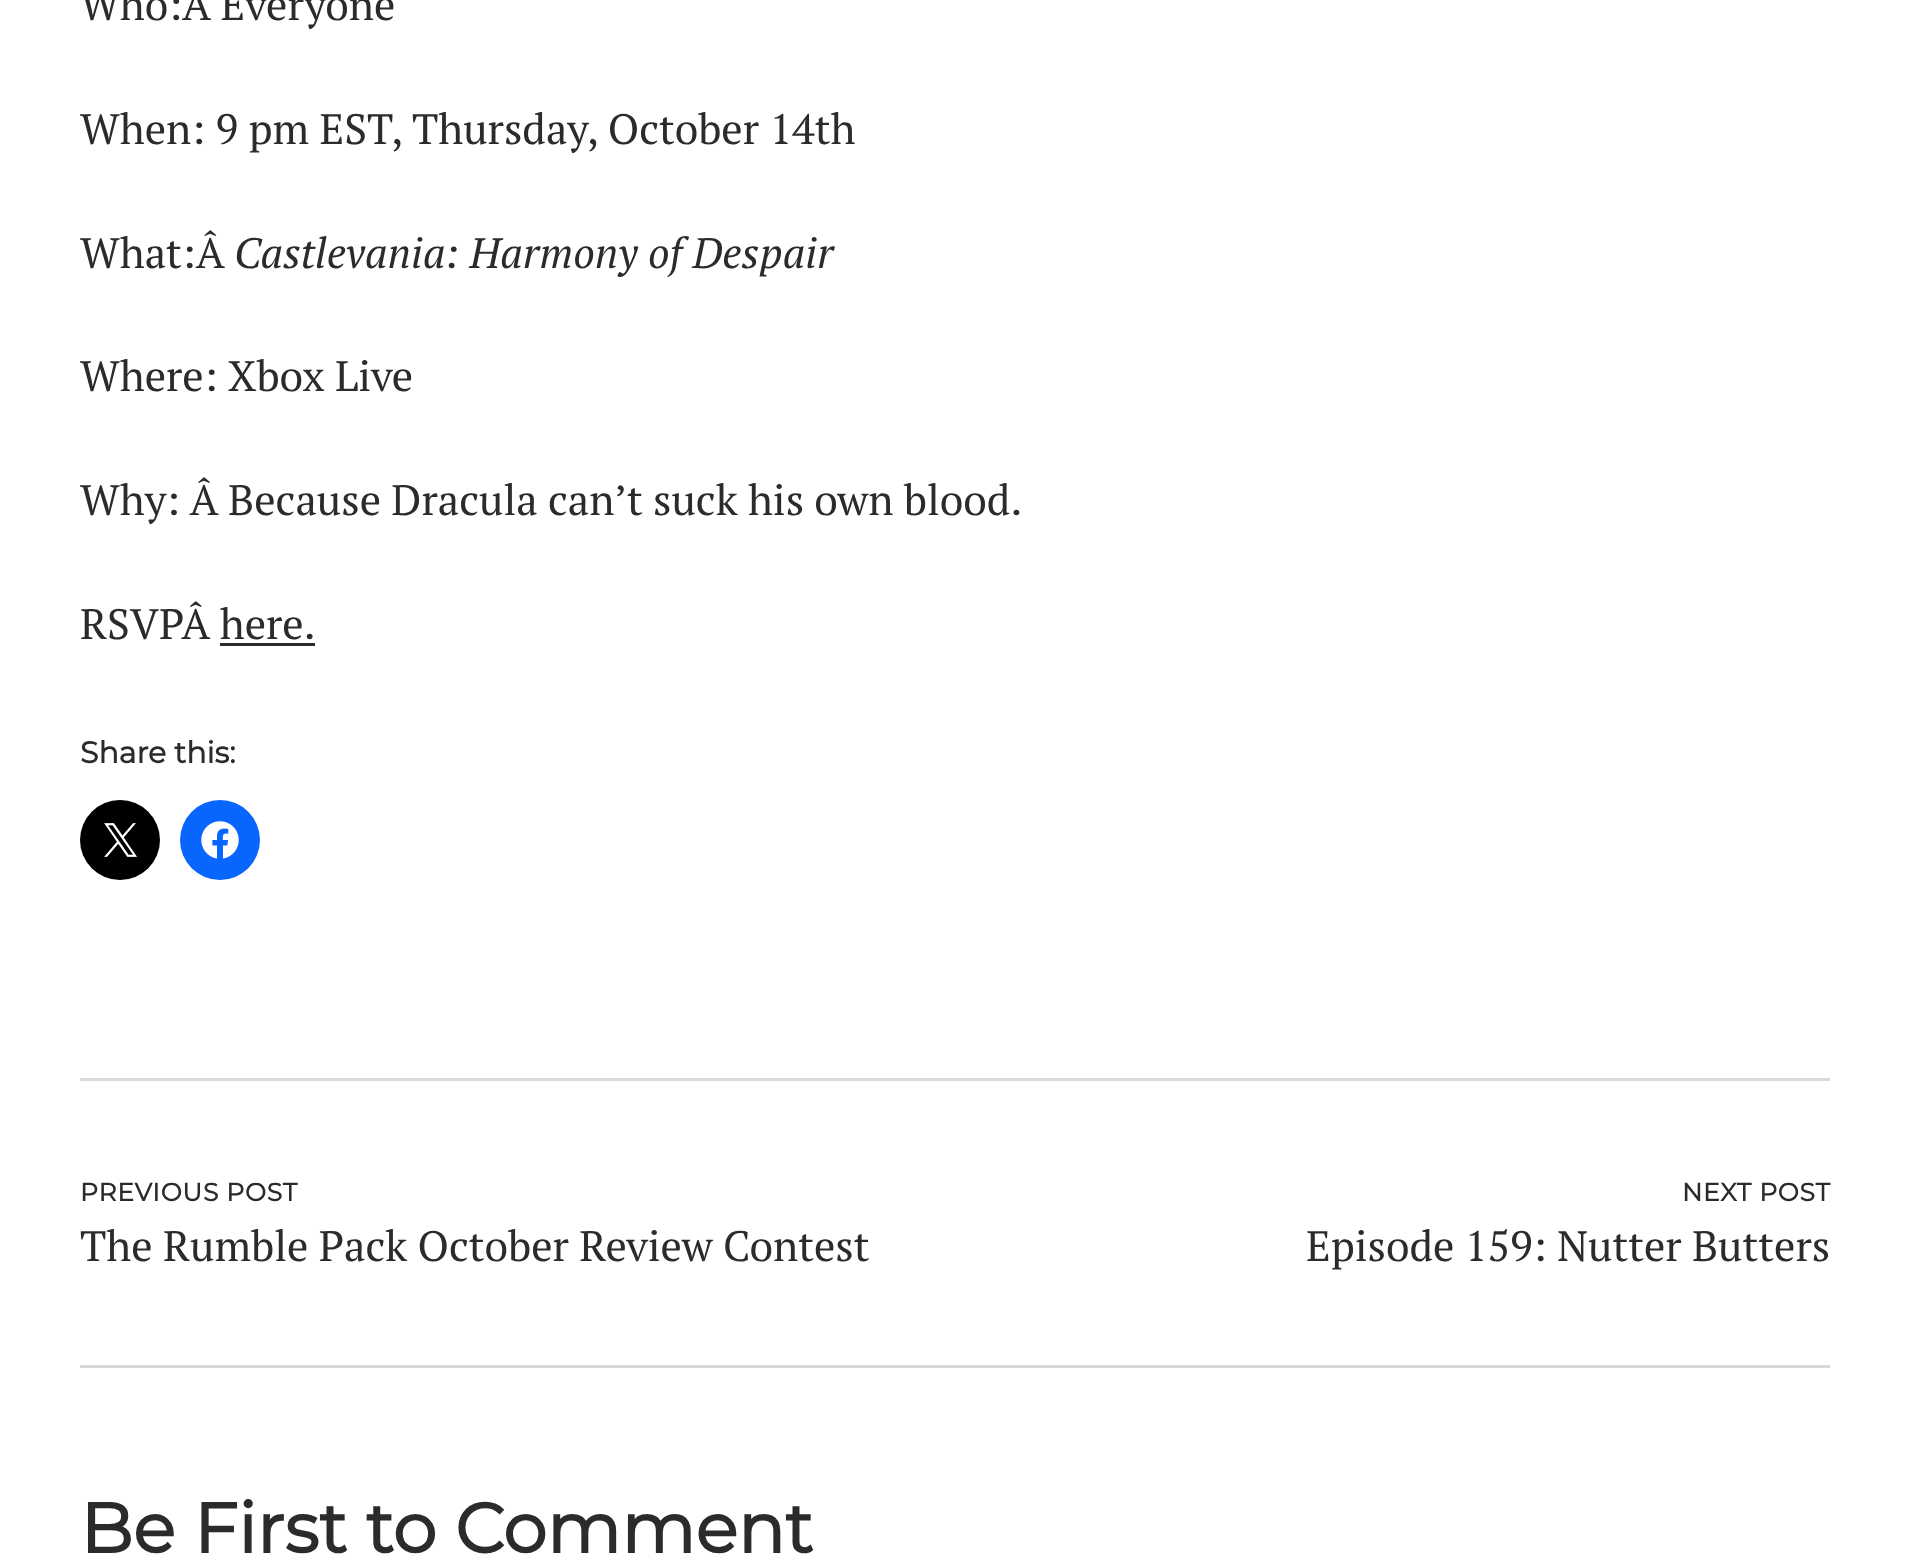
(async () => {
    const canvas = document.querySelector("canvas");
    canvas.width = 1908;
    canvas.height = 1566;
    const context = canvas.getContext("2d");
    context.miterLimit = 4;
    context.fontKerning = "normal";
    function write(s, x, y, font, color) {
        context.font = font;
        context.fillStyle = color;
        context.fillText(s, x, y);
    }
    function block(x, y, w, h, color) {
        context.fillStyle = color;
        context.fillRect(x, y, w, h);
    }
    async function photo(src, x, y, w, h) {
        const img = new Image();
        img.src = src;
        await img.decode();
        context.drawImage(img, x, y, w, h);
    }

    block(0, 0, 1908, 1566, "rgb(255, 255, 255)");
    write("Who:Â Everyone", 80, 20, "42.5px PT Serif", "rgb(43, 43, 43)");
    write("When: 9 pm EST, Thursday, October 14th", 80, 144, "42.5px PT Serif", "rgb(43, 43, 43)");
    write("What:Â", 80, 268, "42.5px PT Serif", "rgb(43, 43, 43)");
    write("Castlevania: Harmony of Despair", 234, 268, "italic 42.5px PT Serif", "rgb(43, 43, 43)");
    write("Where: Xbox Live", 80, 391, "42.5px PT Serif", "rgb(43, 43, 43)");
    write("Why: Â Because Dracula can’t suck his own blood.", 80, 515, "42.5px PT Serif", "rgb(43, 43, 43)");
    write("RSVPÂ here.", 80, 639, "42.5px PT Serif", "rgb(43, 43, 43)");
    block(220, 643, 95, 3, "rgb(43, 43, 43)");
    write("Share this:", 80, 763, "bold 30px Montserrat", "rgb(43, 43, 43)");
    context.fillStyle = "rgb(0, 0, 0)";
    context.beginPath();
    context.arc(120, 840, 40, 0, Math.PI * 2);
    context.fill();
    await photo("media/1.png", 104, 823, 33, 34);
    context.fillStyle = "rgb(8, 102, 255)";
    context.beginPath();
    context.arc(220, 840, 40, 0, Math.PI * 2);
    context.fill();
    await photo("media/2.png", 201, 821, 38, 38);
    block(80, 1078, 1750, 3, "rgb(217, 217, 217)");
    block(80, 1365, 1750, 3, "rgb(217, 217, 217)");
    context.letterSpacing = "0.75px";
    write("PREVIOUS POST", 80, 1201, "bold 25px Montserrat", "rgb(43, 43, 43)");
    context.letterSpacing = "0px";
    write("The Rumble Pack October Review Contest", 80, 1261, "42.5px PT Serif", "rgb(43, 43, 43)");
    context.letterSpacing = "0.75px";
    write("NEXT POST", 1682, 1201, "bold 25px Montserrat", "rgb(43, 43, 43)");
    context.letterSpacing = "0px";
    write("Episode 159: Nutter Butters", 1306, 1261, "42.5px PT Serif", "rgb(43, 43, 43)");
    write("Be First to Comment", 80, 1553, "bold 70px Montserrat", "rgb(43, 43, 43)");
})();
